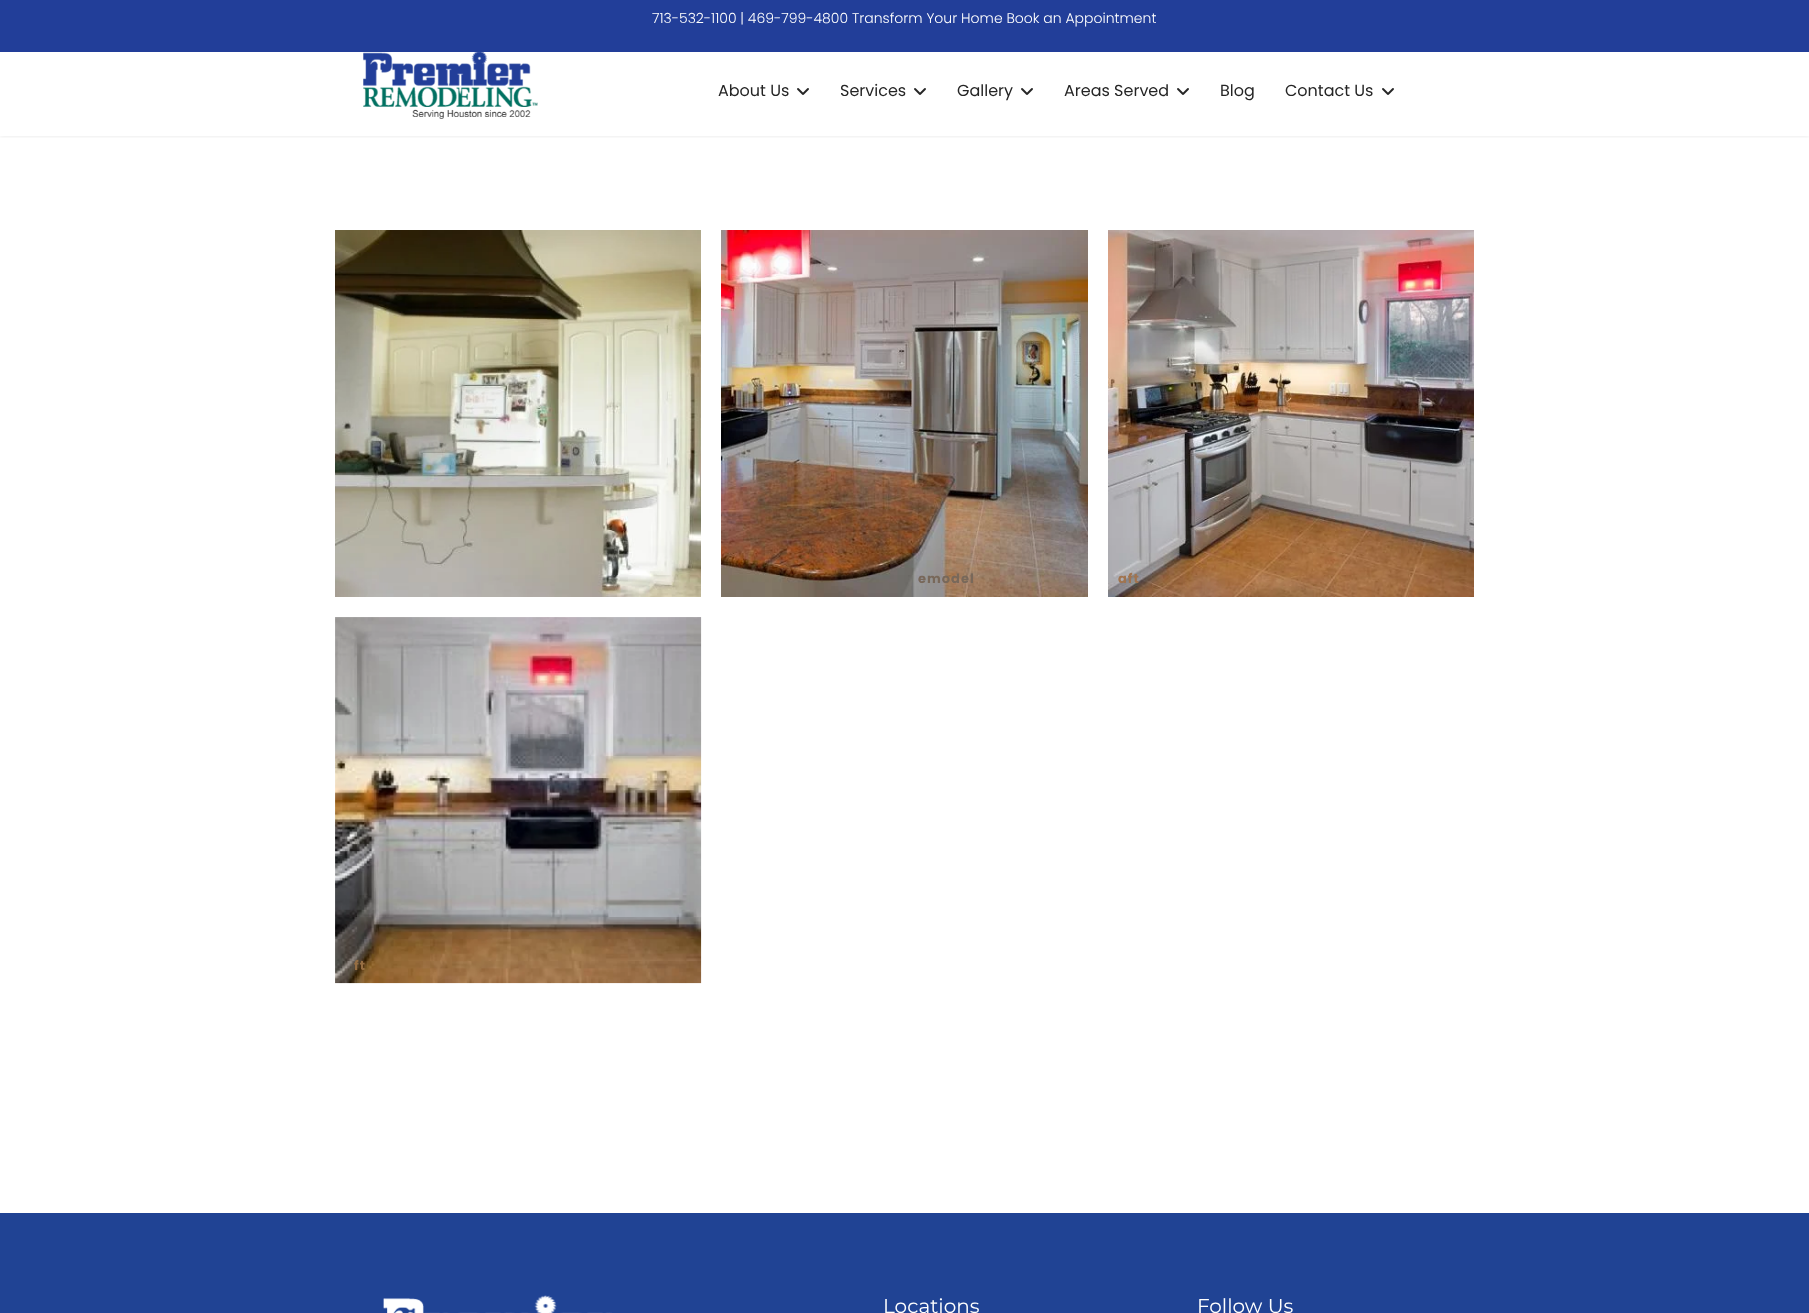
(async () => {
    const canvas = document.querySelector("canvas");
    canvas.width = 1809;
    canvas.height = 1313;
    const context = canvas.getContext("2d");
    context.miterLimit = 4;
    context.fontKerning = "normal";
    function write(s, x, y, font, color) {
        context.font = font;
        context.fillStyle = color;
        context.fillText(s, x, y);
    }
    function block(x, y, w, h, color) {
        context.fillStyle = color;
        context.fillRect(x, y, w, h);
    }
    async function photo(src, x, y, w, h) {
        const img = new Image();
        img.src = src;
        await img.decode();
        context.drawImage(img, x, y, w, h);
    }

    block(0, 0, 1809, 1313, "rgb(255, 255, 255)");
    context.save();
    context.beginPath();
    context.rect(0, 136, 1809, 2);
    context.clip();
    context.fillStyle = "rgba(0, 0, 0, 0.1)";
    context.filter = "blur(2px)";
    context.beginPath();
    context.rect(0, 36, 1809, 100);
    context.fill();
    context.filter = "none";
    context.restore();
    block(0, 0, 1809, 52, "rgb(34, 62, 153)");
    write("713-532-1100 | 469-799-4800 Transform Your Home Book an Appointment", 652, 23, "300 14px Poppins", "rgb(255, 255, 255)");
    await photo("media/1.png", 363, 52, 175, 67);
    write("About Us", 718, 96, "16px Poppins", "rgb(37, 37, 37)");
    await photo("media/2.png", 797, 88, 12, 7);
    write("Services", 840, 96, "16px Poppins", "rgb(37, 37, 37)");
    await photo("media/2.png", 914, 88, 12, 7);
    write("Gallery", 957, 96, "16px Poppins", "rgb(37, 37, 37)");
    await photo("media/2.png", 1021, 88, 12, 7);
    write("Areas Served", 1064, 96, "16px Poppins", "rgb(37, 37, 37)");
    await photo("media/2.png", 1177, 88, 12, 7);
    write("Blog", 1220, 96, "16px Poppins", "rgb(37, 37, 37)");
    write("Contact Us", 1285, 96, "16px Poppins", "rgb(37, 37, 37)");
    await photo("media/2.png", 1382, 88, 12, 7);
    await photo("media/3.png", 335, 230, 366, 367);
    await photo("media/4.png", 721, 230, 367, 367);
    context.letterSpacing = "1px";
    write("emodel", 918, 583, "bold 13px Poppins", "rgb(120, 104, 90)");
    await photo("media/5.png", 1108, 230, 366, 367);
    write("aft", 1118, 583, "bold 13px Poppins", "rgb(161, 116, 79)");
    await photo("media/6.png", 335, 617, 367, 367);
    write("ft", 354, 970, "bold 13px Poppins", "rgb(150, 110, 67)");
    block(0, 1213, 1809, 100, "rgb(32, 67, 148)");
    await photo("media/7.png", 383, 1295, 229, 18);
    context.letterSpacing = "0px";
    write("Locations", 883, 1313, "20px Montserrat", "rgb(255, 255, 255)");
    write("Follow Us", 1197, 1313, "20px Montserrat", "rgb(255, 255, 255)");
})();
